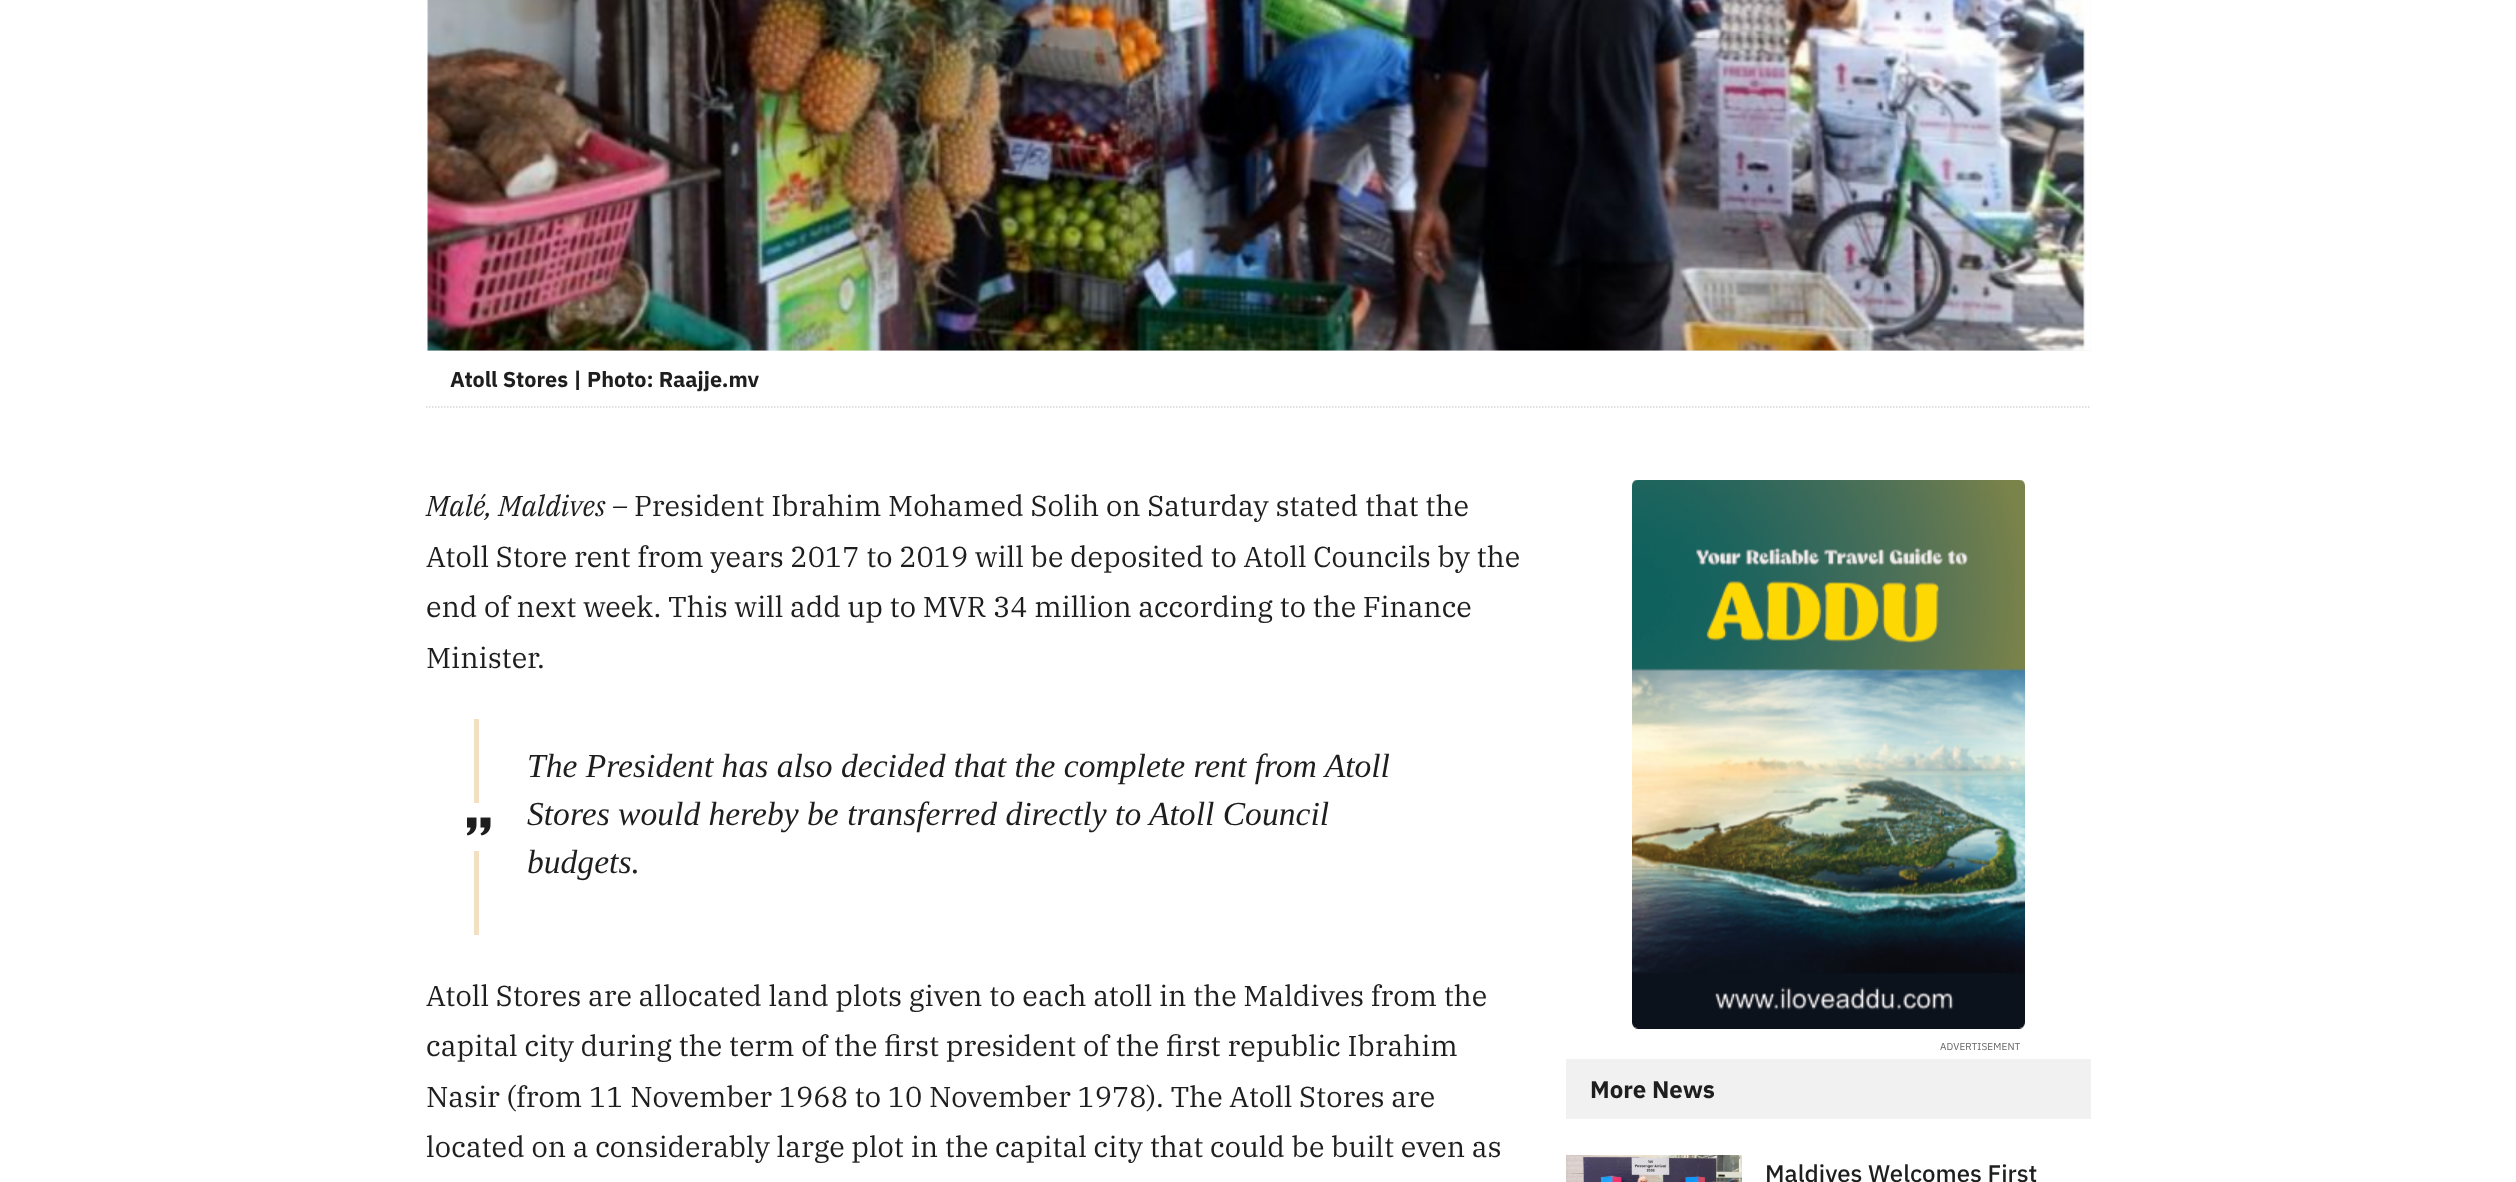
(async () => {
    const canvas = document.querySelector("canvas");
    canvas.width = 2516;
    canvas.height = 1182;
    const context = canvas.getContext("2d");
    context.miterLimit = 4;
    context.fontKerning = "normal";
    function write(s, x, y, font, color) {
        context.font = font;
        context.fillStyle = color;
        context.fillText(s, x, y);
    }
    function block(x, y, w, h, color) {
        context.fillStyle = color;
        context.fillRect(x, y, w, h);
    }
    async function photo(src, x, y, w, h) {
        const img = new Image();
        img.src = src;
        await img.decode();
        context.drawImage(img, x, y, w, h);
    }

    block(0, 0, 2516, 1182, "rgb(255, 255, 255)");
    block(426, 0, 1665, 351, "rgb(241, 241, 241)");
    await photo("media/1.png", 426, 0, 1665, 351);
    context.beginPath();
    context.moveTo(426, 407);
    context.lineTo(2091, 407);
    context.strokeStyle = "rgb(214, 214, 214)";
    context.lineWidth = 1.5;
    context.setLineDash([1.5, 1.5]);
    context.stroke();
    write("Atoll Stores | Photo: Raajje.mv", 450, 387, "bold 21.6px IBM Plex Sans", "rgb(30, 30, 30)");
    write("Malé, Maldives –", 426, 516, "italic 28.8px IBM Plex Serif", "rgb(30, 30, 30)");
    write("President Ibrahim Mohamed Solih on Saturday stated that the", 634, 516, "28.8px IBM Plex Serif", "rgb(30, 30, 30)");
    write("Atoll Store rent from years 2017 to 2019 will be deposited to Atoll Councils by the", 426, 567, "28.8px IBM Plex Serif", "rgb(30, 30, 30)");
    write("end of next week. This will add up to MVR 34 million according to the Finance", 426, 617, "28.8px IBM Plex Serif", "rgb(30, 30, 30)");
    write("Minister.", 426, 668, "28.8px IBM Plex Serif", "rgb(30, 30, 30)");
    block(474, 719, 5, 216, "rgb(243, 224, 194)");
    block(474, 803, 5, 48, "rgb(255, 255, 255)");
    write("The President has also decided that the complete rent from Atoll", 527, 777, "italic 33.6px Liberation Serif", "rgb(30, 30, 30)");
    write("Stores would hereby be transferred directly to Atoll Council", 527, 825, "italic 33.6px Liberation Serif", "rgb(30, 30, 30)");
    write("budgets.", 527, 873, "italic 33.6px Liberation Serif", "rgb(30, 30, 30)");
    await photo("media/2.png", 467, 817, 24, 19);
    write("Atoll Stores are allocated land plots given to each atoll in the Maldives from the", 426, 1006, "28.8px IBM Plex Serif", "rgb(30, 30, 30)");
    write("capital city during the term of the first president of the first republic Ibrahim", 426, 1056, "28.8px IBM Plex Serif", "rgb(30, 30, 30)");
    write("Nasir (from 11 November 1968 to 10 November 1978). The Atoll Stores are", 426, 1107, "28.8px IBM Plex Serif", "rgb(30, 30, 30)");
    write("located on a considerably large plot in the capital city that could be built even as", 426, 1157, "28.8px IBM Plex Serif", "rgb(30, 30, 30)");
    await photo("media/3.png", 1632, 480, 393, 549);
    context.letterSpacing = "0.1px";
    write("ADVERTISEMENT", 1940, 1050, "10px IBM Plex Sans", "rgb(102, 102, 102)");
    block(1566, 1059, 525, 60, "rgb(241, 241, 241)");
    context.letterSpacing = "0px";
    write("More News", 1590, 1098, "bold 24px IBM Plex Sans", "rgb(30, 30, 30)");
    await photo("media/4.png", 1566, 1155, 176, 27);
    write("Maldives Welcomes First", 1765, 1182, "500 24px IBM Plex Sans", "rgb(30, 30, 30)");
})();
